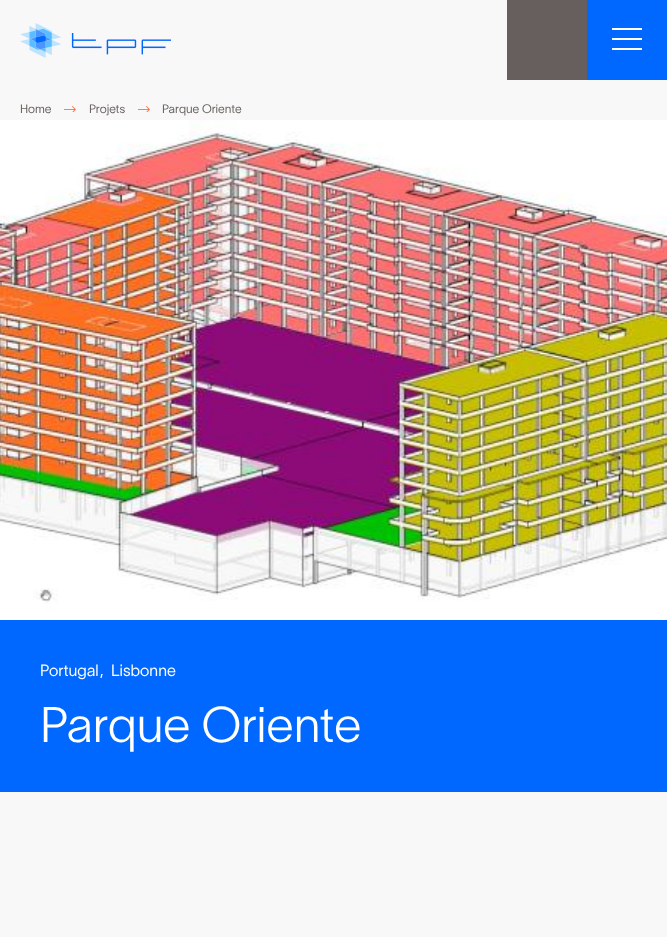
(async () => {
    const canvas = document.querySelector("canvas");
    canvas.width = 667;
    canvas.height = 937;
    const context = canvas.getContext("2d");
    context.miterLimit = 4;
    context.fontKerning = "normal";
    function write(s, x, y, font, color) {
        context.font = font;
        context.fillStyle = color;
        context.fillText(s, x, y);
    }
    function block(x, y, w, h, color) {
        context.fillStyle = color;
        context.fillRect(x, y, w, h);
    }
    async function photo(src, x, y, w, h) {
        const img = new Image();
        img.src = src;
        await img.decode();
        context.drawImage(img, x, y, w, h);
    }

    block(0, 0, 667, 937, "rgb(248, 248, 248)");
    await photo("media/1.png", 20, 23, 151, 35);
    block(507, 0, 80, 80, "rgb(103, 95, 93)");
    block(587, 0, 80, 80, "rgb(0, 103, 255)");
    block(612, 38, 30, 2, "rgb(255, 255, 255)");
    block(612, 28, 30, 2, "rgb(255, 255, 255)");
    block(612, 48, 30, 2, "rgb(255, 255, 255)");
    write("Home", 20, 113, "200 12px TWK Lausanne", "rgb(103, 95, 93)");
    await photo("media/2.png", 64, 106, 12, 6);
    write("Projets", 89, 113, "200 12px TWK Lausanne", "rgb(103, 95, 93)");
    await photo("media/2.png", 138, 106, 12, 6);
    write("Parque Oriente", 162, 113, "200 12px TWK Lausanne", "rgb(103, 95, 93)");
    block(0, 620, 667, 172, "rgb(0, 103, 255)");
    await photo("media/3.png", 0, 120, 667, 500);
    write("Portugal", 40, 676, "200 16px TWK Lausanne", "rgb(255, 255, 255)");
    write(",", 100, 676, "200 16px TWK Lausanne", "rgb(255, 255, 255)");
    write("Lisbonne", 111, 676, "200 16px TWK Lausanne", "rgb(255, 255, 255)");
    write("Parque Oriente", 40, 742, "200 49px 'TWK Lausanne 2'", "rgb(255, 255, 255)");
})();
